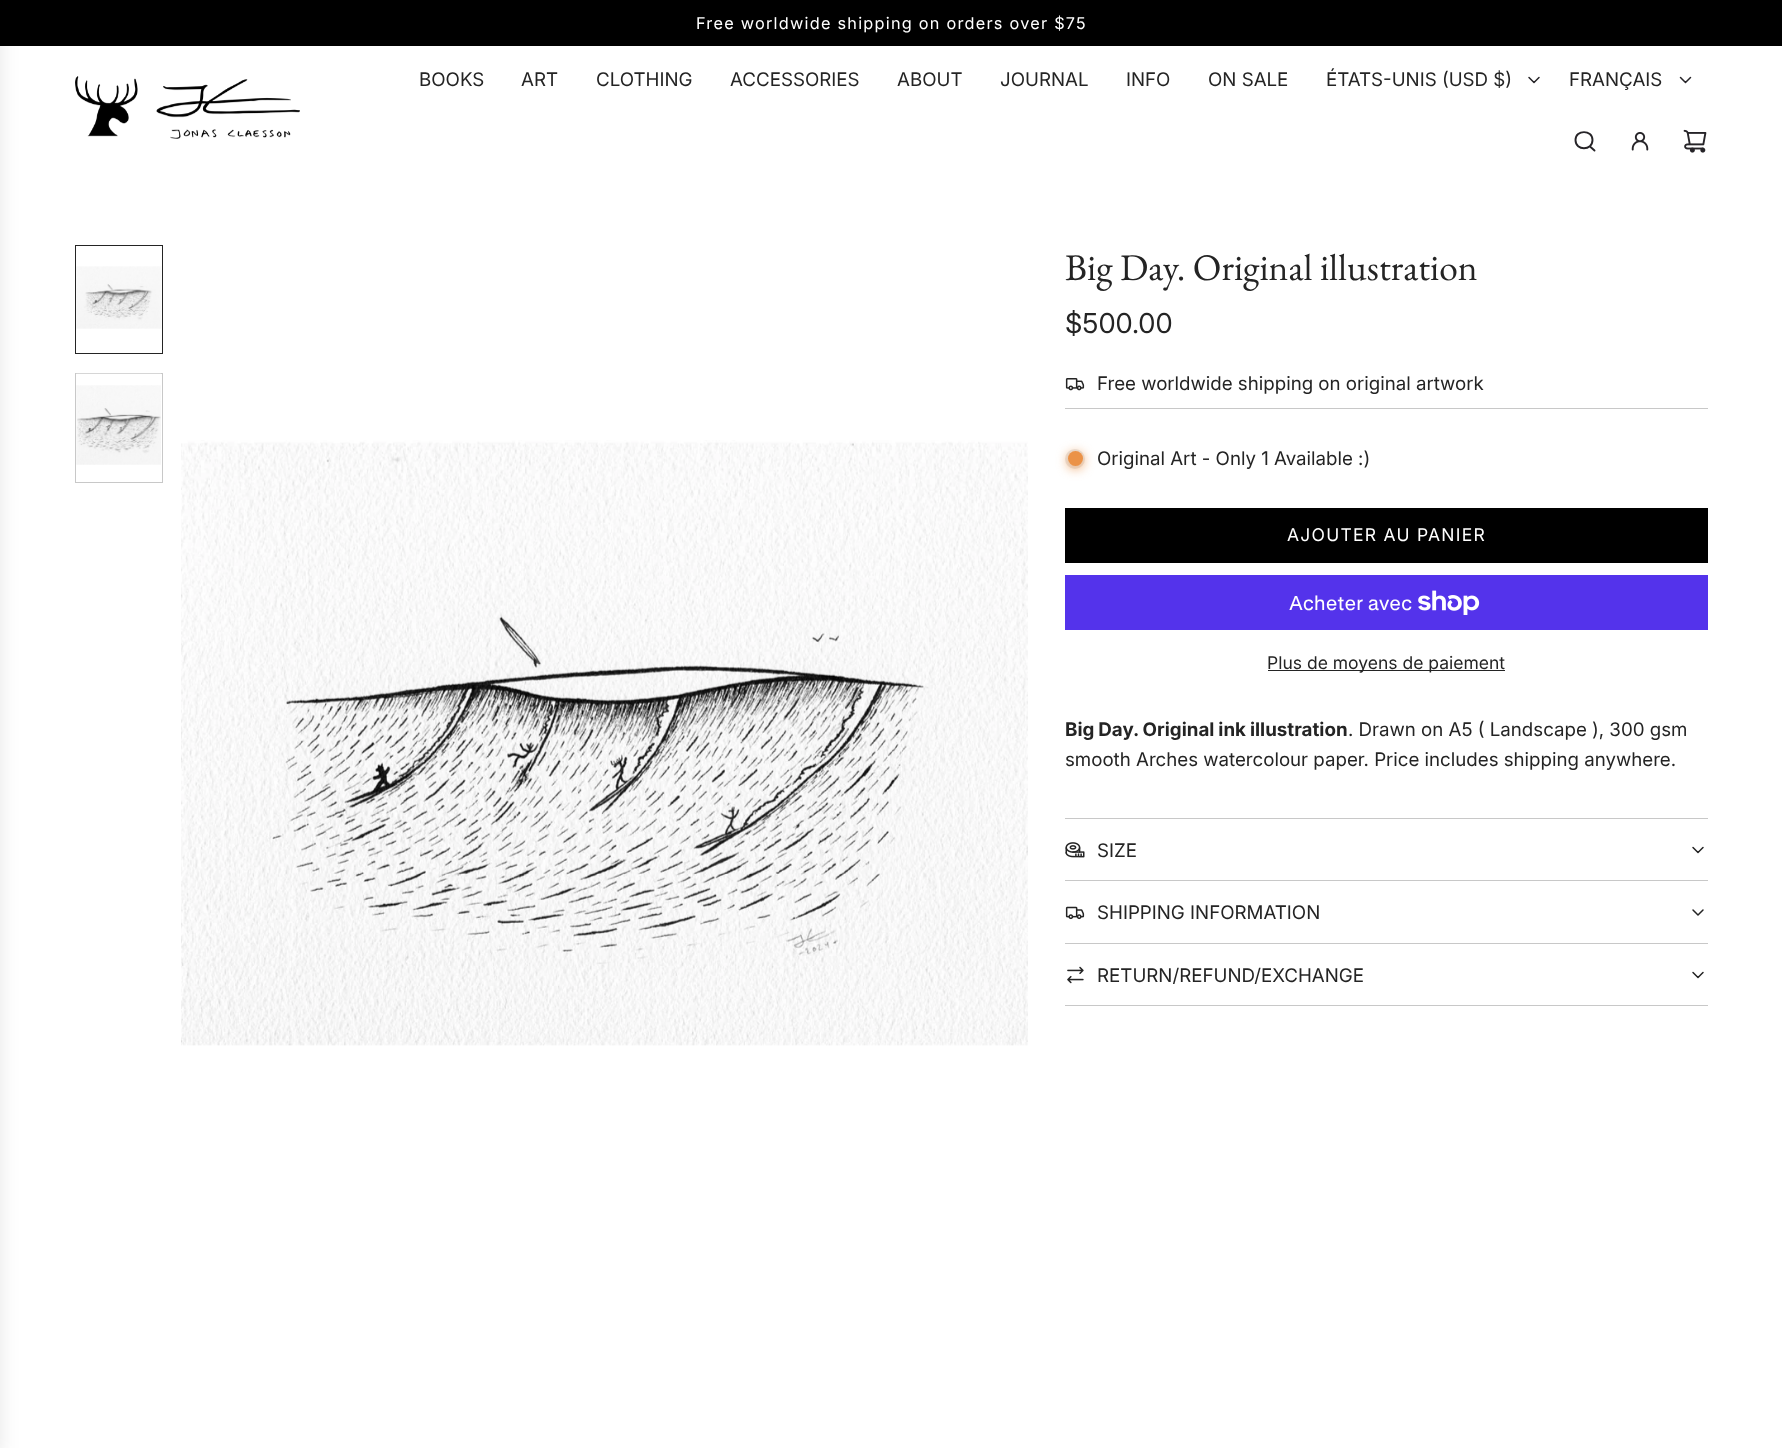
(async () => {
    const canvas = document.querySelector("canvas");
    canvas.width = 1782;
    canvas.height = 1448;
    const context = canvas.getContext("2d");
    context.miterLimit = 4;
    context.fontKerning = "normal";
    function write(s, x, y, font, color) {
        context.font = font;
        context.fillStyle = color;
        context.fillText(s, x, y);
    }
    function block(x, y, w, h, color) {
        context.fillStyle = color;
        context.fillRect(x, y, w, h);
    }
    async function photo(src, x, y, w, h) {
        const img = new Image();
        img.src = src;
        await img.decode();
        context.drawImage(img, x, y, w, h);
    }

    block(0, 0, 1782, 1448, "rgb(255, 255, 255)");
    block(0, 0, 1782, 46, "rgb(0, 0, 0)");
    context.letterSpacing = "1.25px";
    write("Free worldwide shipping on orders over $75", 696, 29, "16.25px 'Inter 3'", "rgb(255, 255, 255)");
    context.fillStyle = "rgba(0, 0, 0, 0.1)";
    context.filter = "blur(9.5px)";
    context.beginPath();
    context.rect(-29, 6, 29, 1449);
    context.fill();
    context.filter = "none";
    await photo("media/1.png", 75, 76, 225, 63);
    context.letterSpacing = "0px";
    write("BOOKS", 419, 86, "18.75px 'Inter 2'", "rgb(36, 36, 36)");
    write("ART", 521, 86, "18.75px 'Inter 2'", "rgb(36, 36, 36)");
    write("CLOTHING", 596, 86, "18.75px 'Inter 2'", "rgb(36, 36, 36)");
    write("ACCESSORIES", 730, 86, "18.75px 'Inter 2'", "rgb(36, 36, 36)");
    write("ABOUT", 897, 86, "18.75px 'Inter 2'", "rgb(36, 36, 36)");
    write("JOURNAL", 1000, 86, "18.75px 'Inter 2'", "rgb(36, 36, 36)");
    write("INFO", 1126, 86, "18.75px 'Inter 2'", "rgb(36, 36, 36)");
    write("ON SALE", 1208, 86, "18.75px 'Inter 2'", "rgb(36, 36, 36)");
    write("ÉTATS-UNIS (USD $)", 1326, 86, "18.75px 'Inter 2'", "rgb(36, 36, 36)");
    context.beginPath();
    context.moveTo(1529, 77.5);
    context.lineTo(1534, 82.5);
    context.lineTo(1539, 77.5);
    context.strokeStyle = "rgb(38, 36, 40)";
    context.lineWidth = 1.5;
    context.lineCap = "round";
    context.lineJoin = "round";
    context.stroke();
    write("FRANÇAIS", 1569, 86, "18.75px 'Inter 2'", "rgb(36, 36, 36)");
    context.beginPath();
    context.moveTo(1680.5, 77.5);
    context.lineTo(1685.5, 82.5);
    context.lineTo(1690.5, 77.5);
    context.stroke();
    context.beginPath();
    context.moveTo(1590, 146.5);
    context.lineTo(1594.5, 150.5);
    context.moveTo(1575.5, 140);
    context.bezierCurveTo(1575.5, 151, 1592.5, 151, 1592.5, 140);
    context.bezierCurveTo(1592.5, 129.5, 1575.5, 129.5, 1575.5, 140);
    context.closePath();
    context.lineWidth = 1.9;
    context.stroke();
    await photo("media/2.png", 1631, 132, 18, 19);
    await photo("media/3.png", 1683, 129, 24, 24);
    context.strokeStyle = "rgb(36, 36, 36)";
    context.lineWidth = 1;
    context.lineJoin = "miter";
    context.strokeRect(75.5, 245.5, 87, 108);
    await photo("media/4.png", 76, 266, 86, 63);
    context.strokeStyle = "rgb(200, 200, 200)";
    context.strokeRect(75.5, 373.5, 87, 109);
    await photo("media/5.png", 76, 373, 85, 92);
    await photo("media/6.png", 181, 440, 847, 606);
    write("Big Day. Original illustration", 1065, 280, "37.5px EB Garamond", "rgb(36, 36, 36)");
    write("$500.00", 1065, 333, "27.5px Inter", "rgb(36, 36, 36)");
    await photo("media/7.png", 1065, 378, 20, 13);
    write("Free worldwide shipping on original artwork", 1097, 390, "18.75px 'Inter 2'", "rgb(36, 36, 36)");
    block(1065, 408, 643, 1, "rgb(200, 200, 200)");
    context.fillStyle = "rgb(233, 233, 233)";
    context.beginPath();
    context.arc(1075, 459, 10, 0, Math.PI * 2);
    context.fill();
    context.fillStyle = "rgb(235, 146, 71)";
    context.filter = "blur(6px)";
    context.beginPath();
    context.roundRect(1068, 453, 15, 15, 7.5);
    context.fill();
    context.filter = "none";
    context.beginPath();
    context.arc(1075.5, 458.5, 7.5, 0, Math.PI * 2);
    context.fill();
    write("Original Art - Only 1 Available :)", 1097, 465, "18.75px 'Inter 2'", "rgb(36, 36, 36)");
    block(1065, 508, 643, 55, "rgb(0, 0, 0)");
    context.letterSpacing = "1.25px";
    write("AJOUTER AU PANIER", 1287, 541, "17.5px 'Inter 3'", "rgb(255, 255, 255)");
    block(1065, 575, 643, 55, "rgb(84, 51, 235)");
    context.letterSpacing = "0px";
    write("Acheter avec", 1289, 610, "20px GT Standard", "rgb(255, 255, 255)");
    await photo("media/8.png", 1418, 590, 62, 25);
    block(1268, 670, 237, 1, "rgb(36, 36, 36)");
    write("Plus de moyens de paiement", 1267, 669, "17.5px 'Inter 3'", "rgb(36, 36, 36)");
    context.wordSpacing = "-0.5px";
    write("Big Day. Original ink illustration", 1065, 736, "bold 18.75px Inter", "rgb(36, 36, 36)");
    context.wordSpacing = "0px";
    write(". Drawn on A5 ( Landscape ), 300 gsm", 1348, 736, "18.75px 'Inter 2'", "rgb(36, 36, 36)");
    write("smooth Arches watercolour paper. Price includes shipping anywhere.", 1065, 766, "18.75px 'Inter 2'", "rgb(36, 36, 36)");
    block(1065, 818, 643, 1, "rgb(200, 200, 200)");
    block(1065, 880, 643, 1, "rgb(200, 200, 200)");
    await photo("media/9.png", 1065, 842, 20, 16);
    write("SIZE", 1097, 857, "18.75px 'Inter 2'", "rgb(36, 36, 36)");
    context.beginPath();
    context.moveTo(1693, 847.5);
    context.lineTo(1698, 852.5);
    context.lineTo(1703, 847.5);
    context.strokeStyle = "rgb(36, 36, 36)";
    context.lineWidth = 1.5;
    context.lineJoin = "round";
    context.stroke();
    block(1065, 943, 643, 1, "rgb(200, 200, 200)");
    await photo("media/10.png", 1065, 906, 20, 14);
    write("SHIPPING INFORMATION", 1097, 919, "18.75px 'Inter 2'", "rgb(36, 36, 36)");
    context.beginPath();
    context.moveTo(1693, 910);
    context.lineTo(1698, 915);
    context.lineTo(1703, 910);
    context.stroke();
    block(1065, 1005, 643, 1, "rgb(200, 200, 200)");
    await photo("media/11.png", 1067, 966, 17, 18);
    write("RETURN/REFUND/EXCHANGE", 1097, 982, "18.75px 'Inter 2'", "rgb(36, 36, 36)");
    context.beginPath();
    context.moveTo(1693, 972.5);
    context.lineTo(1698, 977.5);
    context.lineTo(1703, 972.5);
    context.stroke();
})();
